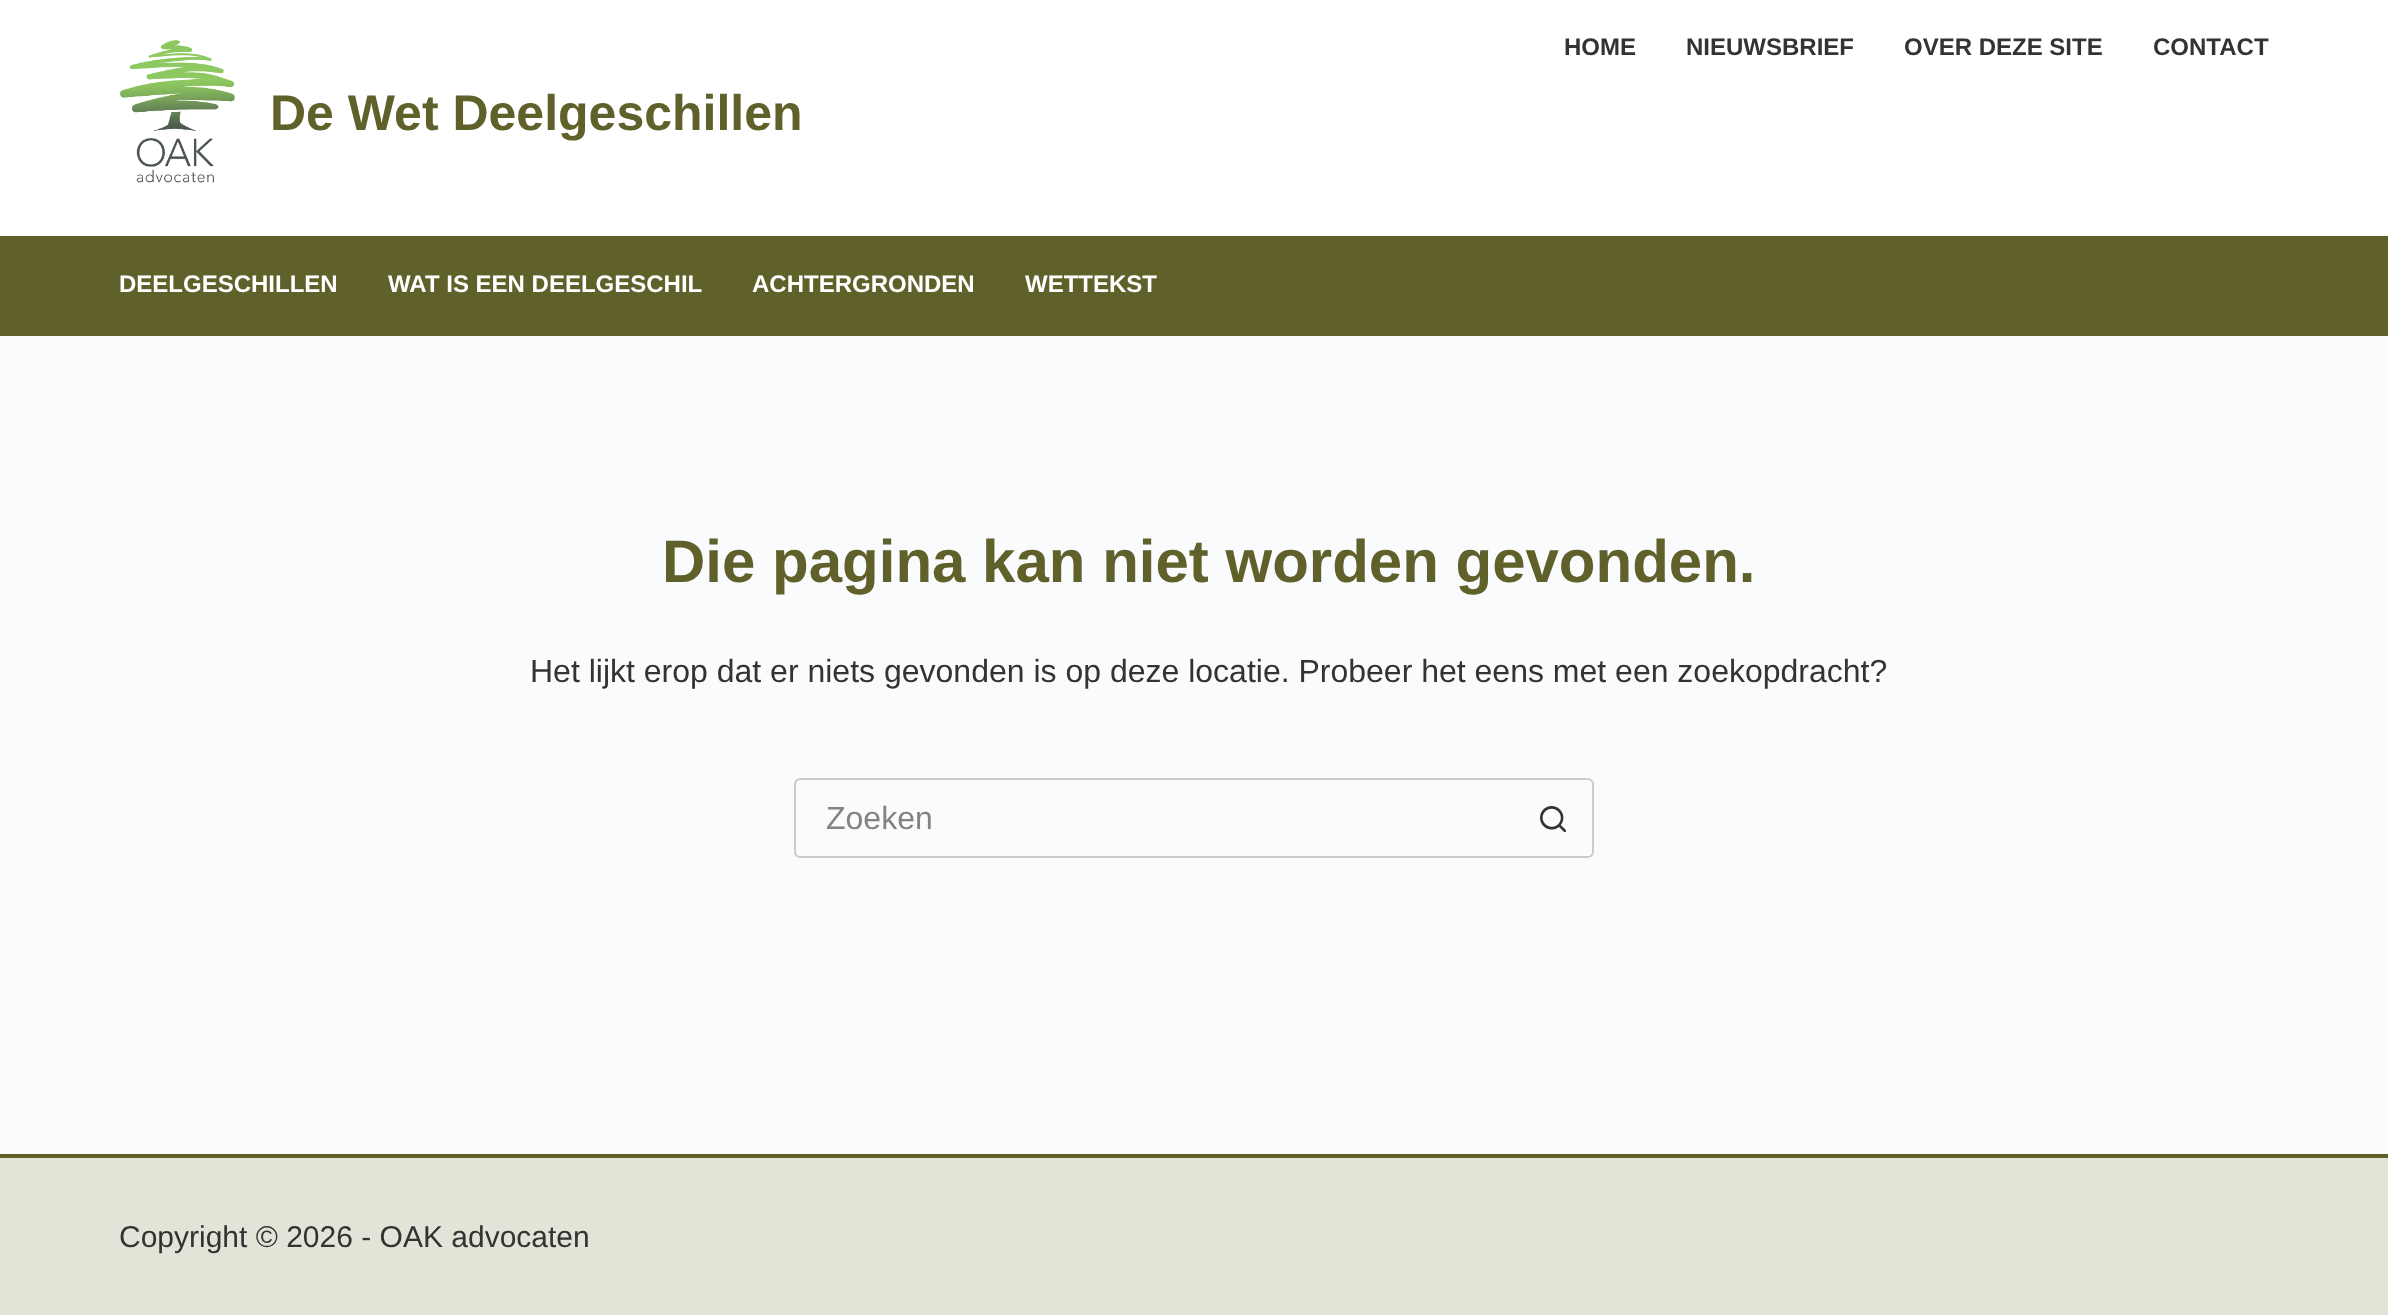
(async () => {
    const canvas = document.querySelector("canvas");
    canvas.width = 2388;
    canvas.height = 1315;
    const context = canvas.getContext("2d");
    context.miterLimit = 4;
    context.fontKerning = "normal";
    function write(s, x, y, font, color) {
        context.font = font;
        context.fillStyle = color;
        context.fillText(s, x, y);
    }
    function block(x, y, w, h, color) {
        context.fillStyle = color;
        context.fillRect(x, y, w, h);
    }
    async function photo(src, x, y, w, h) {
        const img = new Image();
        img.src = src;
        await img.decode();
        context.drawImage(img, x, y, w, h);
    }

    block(0, 0, 2388, 1315, "rgb(250, 251, 252)");
    block(0, 0, 2388, 236, "rgb(255, 255, 255)");
    write("HOME", 1564, 55, "bold 24px Liberation Sans", "rgb(51, 51, 51)");
    write("NIEUWSBRIEF", 1686, 55, "bold 24px Liberation Sans", "rgb(51, 51, 51)");
    write("OVER DEZE SITE", 1904, 55, "bold 24px Liberation Sans", "rgb(51, 51, 51)");
    write("CONTACT", 2153, 55, "bold 24px Liberation Sans", "rgb(51, 51, 51)");
    await photo("media/1.png", 120, 40, 115, 143);
    write("De Wet Deelgeschillen", 270, 130, "bold 50px Liberation Sans", "rgb(96, 96, 42)");
    block(0, 236, 2388, 100, "rgb(96, 96, 42)");
    write("DEELGESCHILLEN", 119, 292, "bold 24px Liberation Sans", "rgb(255, 255, 255)");
    write("WAT IS EEN DEELGESCHIL", 388, 292, "bold 24px Liberation Sans", "rgb(255, 255, 255)");
    write("ACHTERGRONDEN", 752, 292, "bold 24px Liberation Sans", "rgb(255, 255, 255)");
    write("WETTEKST", 1025, 292, "bold 24px Liberation Sans", "rgb(255, 255, 255)");
    write("Die pagina kan niet worden gevonden.", 662, 582, "bold 60px Liberation Sans", "rgb(96, 96, 42)");
    write("Het lijkt erop dat er niets gevonden is op deze locatie. Probeer het eens met een zoekopdracht?", 530, 682, "32px Liberation Sans", "rgb(51, 51, 51)");
    context.fillStyle = "rgb(204, 204, 204)";
    context.beginPath();
    context.moveTo(800, 778);
    context.lineTo(1514, 778);
    context.lineTo(1514, 858);
    context.lineTo(800, 858);
    context.bezierCurveTo(797, 858, 794, 855, 794, 852);
    context.lineTo(794, 784);
    context.bezierCurveTo(794, 781, 797, 778, 800, 778);
    context.closePath();
    context.moveTo(800, 780);
    context.lineTo(1514, 780);
    context.lineTo(1514, 856);
    context.lineTo(800, 856);
    context.bezierCurveTo(798, 856, 796, 854, 796, 852);
    context.lineTo(796, 784);
    context.bezierCurveTo(796, 782, 798, 780, 800, 780);
    context.closePath();
    context.fill("evenodd");
    write("Zoeken", 826, 829, "32px Liberation Sans", "rgb(131, 131, 131)");
    context.fillStyle = "rgb(204, 204, 204)";
    context.beginPath();
    context.moveTo(1514, 778);
    context.lineTo(1588, 778);
    context.bezierCurveTo(1591, 778, 1594, 781, 1594, 784);
    context.lineTo(1594, 852);
    context.bezierCurveTo(1594, 855, 1591, 858, 1588, 858);
    context.lineTo(1514, 858);
    context.closePath();
    context.moveTo(1514, 780);
    context.lineTo(1588, 780);
    context.bezierCurveTo(1590, 780, 1592, 782, 1592, 784);
    context.lineTo(1592, 852);
    context.bezierCurveTo(1592, 854, 1590, 856, 1588, 856);
    context.lineTo(1514, 856);
    context.closePath();
    context.fill("evenodd");
    await photo("media/2.png", 1540, 806, 26, 26);
    block(0, 1158, 2388, 157, "rgb(228, 227, 216)");
    block(0, 1154, 2388, 4, "rgb(96, 96, 42)");
    write("Copyright © 2026 - OAK advocaten", 119, 1247, "30px Liberation Sans", "rgb(51, 51, 51)");
})();
